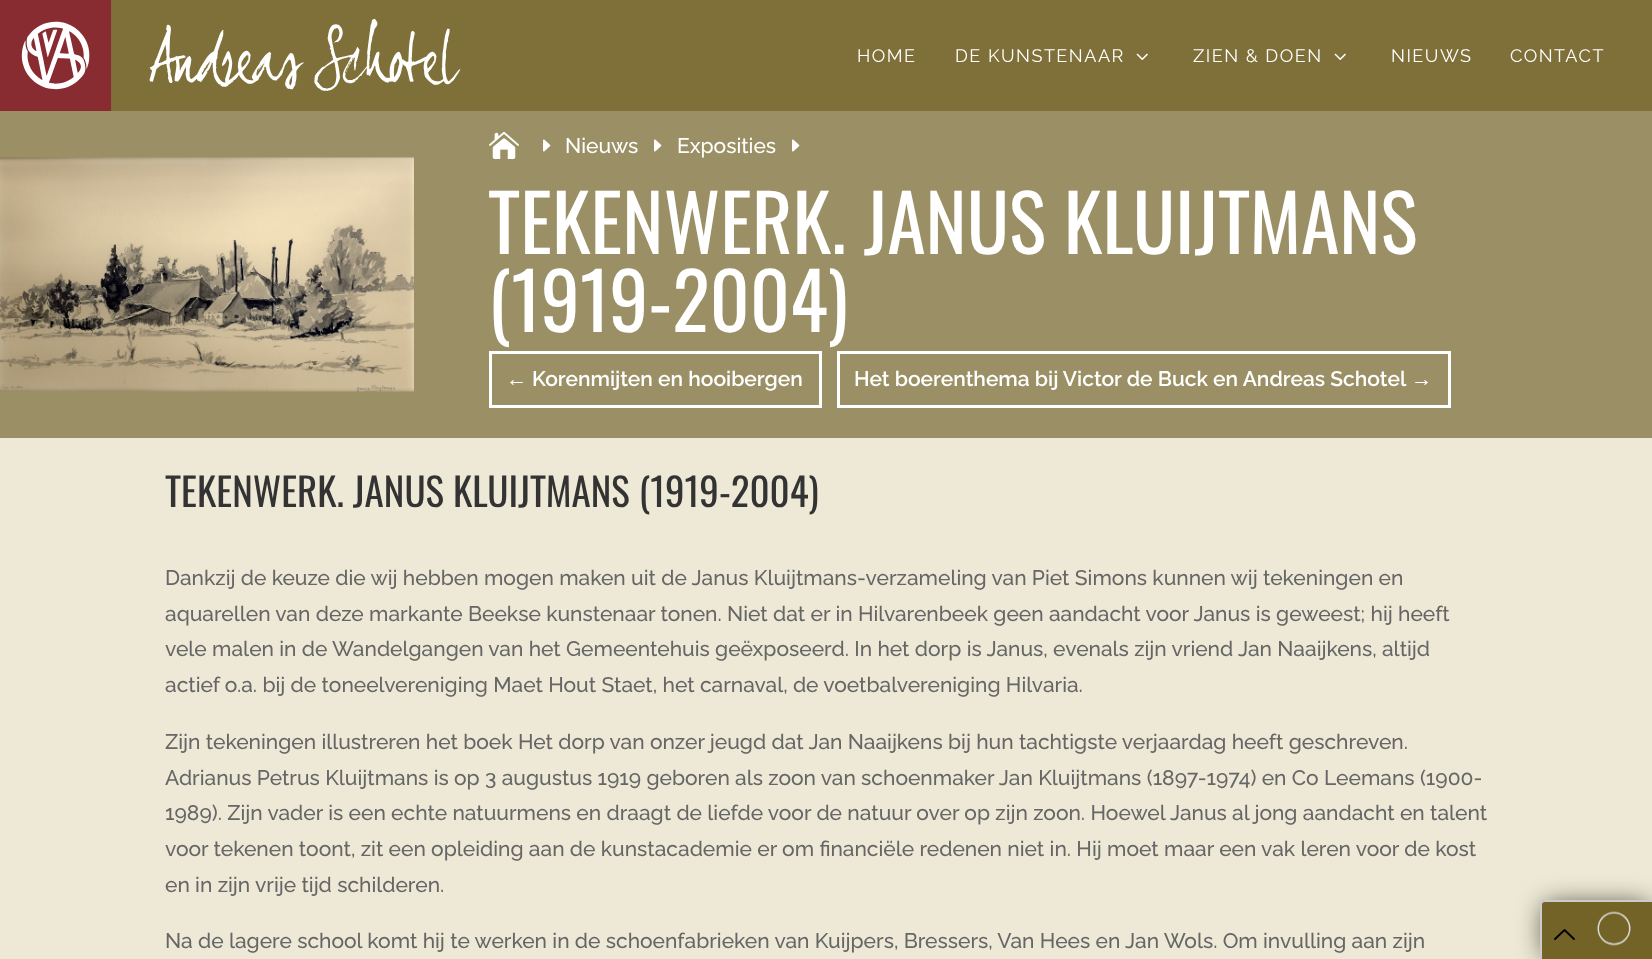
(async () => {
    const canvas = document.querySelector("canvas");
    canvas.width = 1652;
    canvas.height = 959;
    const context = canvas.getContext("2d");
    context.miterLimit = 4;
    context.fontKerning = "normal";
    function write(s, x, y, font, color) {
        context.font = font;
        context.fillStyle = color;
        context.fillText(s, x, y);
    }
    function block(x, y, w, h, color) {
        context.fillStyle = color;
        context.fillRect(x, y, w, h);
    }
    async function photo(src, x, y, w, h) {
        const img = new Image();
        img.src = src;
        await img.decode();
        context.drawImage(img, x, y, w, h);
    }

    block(0, 0, 1652, 959, "rgb(155, 144, 101)");
    block(111, 0, 1541, 111, "rgb(127, 112, 57)");
    await photo("media/1.png", 0, 0, 461, 111);
    context.letterSpacing = "1.5px";
    write("HOME", 857, 62, "18px Raleway", "rgb(255, 255, 255)");
    write("DE KUNSTENAAR", 955, 62, "18px Raleway", "rgb(255, 255, 255)");
    await photo("media/2.png", 1136, 53, 12, 7);
    write("ZIEN & DOEN", 1193, 62, "18px Raleway", "rgb(255, 255, 255)");
    await photo("media/2.png", 1334, 53, 12, 7);
    write("NIEUWS", 1391, 62, "18px Raleway", "rgb(255, 255, 255)");
    write("CONTACT", 1510, 62, "18px Raleway", "rgb(255, 255, 255)");
    await photo("media/3.png", 0, 157, 414, 235);
    await photo("media/4.png", 489, 131, 30, 28);
    await photo("media/5.png", 543, 139, 8, 13);
    context.letterSpacing = "0px";
    write("Nieuws", 565, 153, "500 21px Raleway", "rgb(255, 255, 255)");
    await photo("media/5.png", 654, 139, 8, 13);
    write("Exposities", 677, 153, "500 21px Raleway", "rgb(255, 255, 255)");
    await photo("media/5.png", 792, 139, 8, 13);
    write("TEKENWERK. JANUS KLUIJTMANS", 488, 254, "78px Oswald", "rgb(255, 255, 255)");
    write("(1919-2004)", 488, 332, "78px Oswald", "rgb(255, 255, 255)");
    context.strokeStyle = "rgb(255, 255, 255)";
    context.lineWidth = 3;
    context.strokeRect(490.5, 352.5, 330, 54);
    write("←", 506, 386, "bold 21px Liberation Sans", "rgb(255, 255, 255)");
    write("Korenmijten en hooibergen", 532, 386, "600 21px Raleway", "rgb(255, 255, 255)");
    context.strokeRect(838.5, 352.5, 611, 54);
    write("Het boerenthema bij Victor de Buck en Andreas Schotel", 854, 386, "600 21px Raleway", "rgb(255, 255, 255)");
    write("→", 1411, 386, "bold 21px Liberation Sans", "rgb(255, 255, 255)");
    block(0, 438, 1652, 521, "rgb(237, 233, 214)");
    write("TEKENWERK. JANUS KLUIJTMANS (1919-2004)", 165, 507, "39px Oswald", "rgb(51, 51, 51)");
    write("Dankzij de keuze die wij hebben mogen maken uit de Janus Kluijtmans-verzameling van Piet Simons kunnen wij tekeningen en", 165, 585, "500 21px Raleway", "rgb(102, 102, 102)");
    write("aquarellen van deze markante Beekse kunstenaar tonen. Niet dat er in Hilvarenbeek geen aandacht voor Janus is geweest; hij heeft", 165, 621, "500 21px Raleway", "rgb(102, 102, 102)");
    write("vele malen in de Wandelgangen van het Gemeentehuis geëxposeerd. In het dorp is Janus, evenals zijn vriend Jan Naaijkens, altijd", 165, 656, "500 21px Raleway", "rgb(102, 102, 102)");
    write("actief o.a. bij de toneelvereniging Maet Hout Staet, het carnaval, de voetbalvereniging Hilvaria.", 165, 692, "500 21px Raleway", "rgb(102, 102, 102)");
    write("Zijn tekeningen illustreren het boek Het dorp van onzer jeugd dat Jan Naaijkens bij hun tachtigste verjaardag heeft geschreven.", 165, 749, "500 21px Raleway", "rgb(102, 102, 102)");
    write("Adrianus Petrus Kluijtmans is op 3 augustus 1919 geboren als zoon van schoenmaker Jan Kluijtmans (1897-1974) en Co Leemans (1900-", 165, 785, "500 21px Raleway", "rgb(102, 102, 102)");
    write("1989). Zijn vader is een echte natuurmens en draagt de liefde voor de natuur over op zijn zoon. Hoewel Janus al jong aandacht en talent", 165, 820, "500 21px Raleway", "rgb(102, 102, 102)");
    write("voor tekenen toont, zit een opleiding aan de kunstacademie er om financiële redenen niet in. Hij moet maar een vak leren voor de kost", 165, 856, "500 21px Raleway", "rgb(102, 102, 102)");
    write("en in zijn vrije tijd schilderen.", 165, 892, "500 21px Raleway", "rgb(102, 102, 102)");
    write("Na de lagere school komt hij te werken in de schoenfabrieken van Kuijpers, Bressers, Van Hees en Jan Wols. Om invulling aan zijn", 165, 948, "500 21px Raleway", "rgb(102, 102, 102)");
    context.fillStyle = "rgba(0, 0, 0, 0.75)";
    context.filter = "blur(13.5px)";
    context.beginPath();
    context.rect(1545, 905, 104, 51);
    context.fill();
    context.filter = "none";
    context.fillStyle = "rgb(115, 99, 39)";
    context.beginPath();
    context.moveTo(1546, 900);
    context.lineTo(1587, 900);
    context.lineTo(1587, 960);
    context.lineTo(1541, 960);
    context.lineTo(1541, 905);
    context.bezierCurveTo(1541, 902, 1543, 900, 1546, 900);
    context.closePath();
    context.fill();
    context.fillStyle = "rgb(204, 204, 204)";
    context.beginPath();
    context.moveTo(1545, 900);
    context.lineTo(1587, 900);
    context.lineTo(1587, 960);
    context.lineTo(1540, 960);
    context.lineTo(1540, 905);
    context.bezierCurveTo(1540, 902, 1543, 900, 1545, 900);
    context.closePath();
    context.moveTo(1545, 902);
    context.lineTo(1587, 902);
    context.lineTo(1587, 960);
    context.lineTo(1542, 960);
    context.lineTo(1542, 905);
    context.bezierCurveTo(1542, 903, 1543, 902, 1545, 902);
    context.closePath();
    context.fill("evenodd");
    context.beginPath();
    context.moveTo(1555, 939);
    context.lineTo(1564.5, 930);
    context.lineTo(1574, 939);
    context.strokeStyle = "rgb(0, 0, 0)";
    context.lineWidth = 1.9;
    context.lineCap = "round";
    context.lineJoin = "round";
    context.stroke();
    block(1587, 902, 65, 57, "rgb(115, 99, 39)");
    block(1587, 900, 65, 2, "rgb(204, 204, 204)");
    await photo("media/6.png", 1597, 911, 34, 35);
})();
